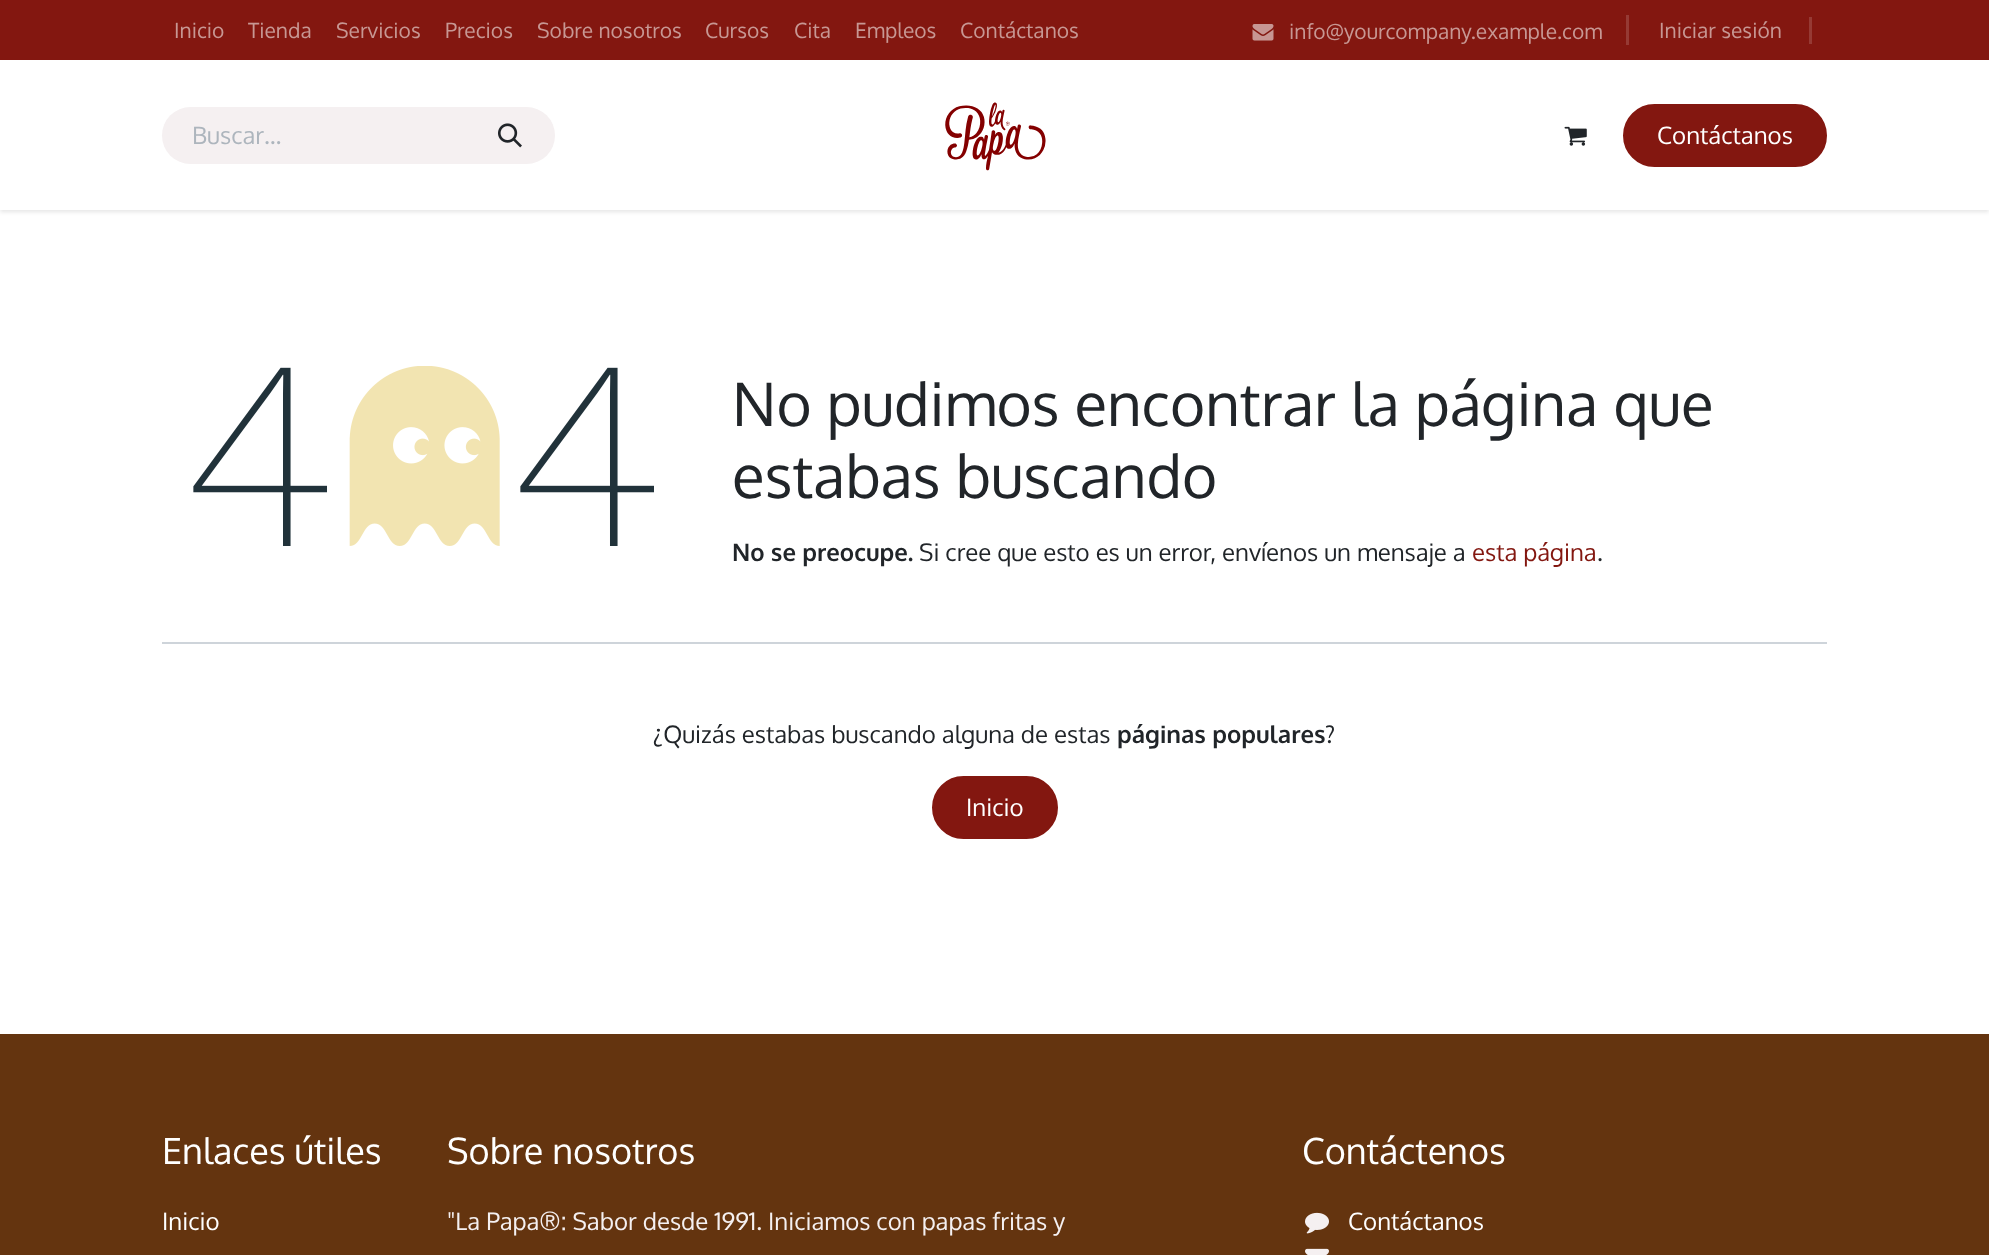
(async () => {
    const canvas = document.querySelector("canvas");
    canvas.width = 1989;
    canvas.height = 1255;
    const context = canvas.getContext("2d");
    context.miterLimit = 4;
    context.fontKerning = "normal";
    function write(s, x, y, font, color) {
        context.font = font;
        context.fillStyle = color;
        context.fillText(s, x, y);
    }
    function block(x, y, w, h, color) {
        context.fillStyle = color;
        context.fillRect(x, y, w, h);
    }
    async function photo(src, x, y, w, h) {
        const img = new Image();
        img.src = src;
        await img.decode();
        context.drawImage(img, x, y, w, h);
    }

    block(0, 0, 1989, 1255, "rgb(255, 255, 255)");
    context.fillStyle = "rgba(0, 0, 0, 0.1)";
    context.filter = "blur(2px)";
    context.beginPath();
    context.rect(0, 2, 1989, 210);
    context.fill();
    context.filter = "none";
    block(0, 0, 1989, 60, "rgb(131, 23, 16)");
    write("Inicio", 174, 38, "21px Oxygen", "rgb(199, 151, 147)");
    write("Tienda", 248, 38, "21px Oxygen", "rgb(199, 151, 147)");
    write("Servicios", 336, 38, "21px Oxygen", "rgb(199, 151, 147)");
    write("Precios", 445, 38, "21px Oxygen", "rgb(199, 151, 147)");
    write("Sobre nosotros", 537, 38, "21px Oxygen", "rgb(199, 151, 147)");
    write("Cursos", 705, 38, "21px Oxygen", "rgb(199, 151, 147)");
    write("Cita", 794, 38, "21px Oxygen", "rgb(199, 151, 147)");
    write("Empleos", 855, 38, "21px Oxygen", "rgb(199, 151, 147)");
    write("Contáctanos", 960, 38, "21px Oxygen", "rgb(199, 151, 147)");
    await photo("media/1.png", 1252, 24, 22, 17);
    write("info@yourcompany.example.com", 1289, 39, "21px Oxygen", "rgb(199, 151, 147)");
    block(1626, 15, 3, 30, "rgb(150, 58, 52)");
    write("Iniciar sesión", 1659, 38, "21px Oxygen", "rgb(199, 151, 147)");
    block(1809, 17, 3, 27, "rgb(150, 58, 52)");
    block(0, 60, 1989, 150, "rgb(255, 255, 255)");
    context.fillStyle = "rgb(245, 240, 241)";
    context.beginPath();
    context.roundRect(162, 107, 303, 57, [28.5, 0, 0, 28.5]);
    context.fill();
    write("Buscar…", 192, 144, "24px Oxygen", "rgb(173, 181, 189)");
    context.fillStyle = "rgb(245, 240, 241)";
    context.beginPath();
    context.roundRect(464, 107, 91, 57, [0, 28.5, 28.5, 0]);
    context.fill();
    await photo("media/2.png", 498, 123, 24, 25);
    await photo("media/3.png", 945, 102, 101, 69);
    await photo("media/4.png", 1564, 126, 23, 20);
    context.fillStyle = "rgb(131, 23, 16)";
    context.beginPath();
    context.roundRect(1624, 105, 202, 61, 30.5);
    context.fill();
    context.strokeStyle = "rgb(131, 23, 16)";
    context.lineWidth = 2;
    context.stroke();
    write("Contáctanos", 1657, 144, "24px Oxygen", "rgb(255, 255, 255)");
    await photo("media/5.png", 193, 366, 461, 180);
    write("No pudimos encontrar la página que", 732, 426, "60px Oxygen", "rgb(33, 37, 41)");
    write("estabas buscando", 732, 498, "60px Oxygen", "rgb(33, 37, 41)");
    write("No se preocupe.", 732, 561, "bold 24px Oxygen", "rgb(33, 37, 41)");
    write("Si cree que esto es un error, envíenos un mensaje a", 919, 561, "24px Oxygen", "rgb(33, 37, 41)");
    write("esta página", 1472, 561, "24px Oxygen", "rgb(131, 23, 16)");
    write(".", 1597, 561, "24px Oxygen", "rgb(33, 37, 41)");
    block(162, 642, 1665, 2, "rgb(206, 212, 218)");
    write("¿Quizás estabas buscando alguna de estas", 653, 743, "24px Oxygen", "rgb(33, 37, 41)");
    write("páginas populares", 1117, 743, "bold 24px Oxygen", "rgb(33, 37, 41)");
    write("?", 1325, 743, "24px Oxygen", "rgb(33, 37, 41)");
    context.fillStyle = "rgb(131, 23, 16)";
    context.beginPath();
    context.roundRect(933, 777, 124, 61, 30.5);
    context.fill();
    context.stroke();
    write("Inicio", 966, 816, "24px Oxygen", "rgb(255, 255, 255)");
    block(0, 1034, 1989, 221, "rgb(100, 52, 15)");
    write("Enlaces útiles", 162, 1164, "36px Oxygen", "rgb(255, 255, 255)");
    write("Inicio", 162, 1230, "24px Oxygen", "rgb(255, 255, 255)");
    write("Sobre nosotros", 447, 1164, "36px Oxygen", "rgb(255, 255, 255)");
    write("\"La Papa®: Sabor desde 1991. Iniciamos con papas fritas y", 447, 1230, "24px Oxygen", "rgb(245, 240, 241)");
    write("Contáctenos", 1302, 1164, "36px Oxygen", "rgb(255, 255, 255)");
    await photo("media/6.png", 1305, 1212, 24, 22);
    write("Contáctanos", 1348, 1230, "24px Oxygen", "rgb(255, 255, 255)");
    await photo("media/7.png", 1305, 1248, 24, 7);
})();
